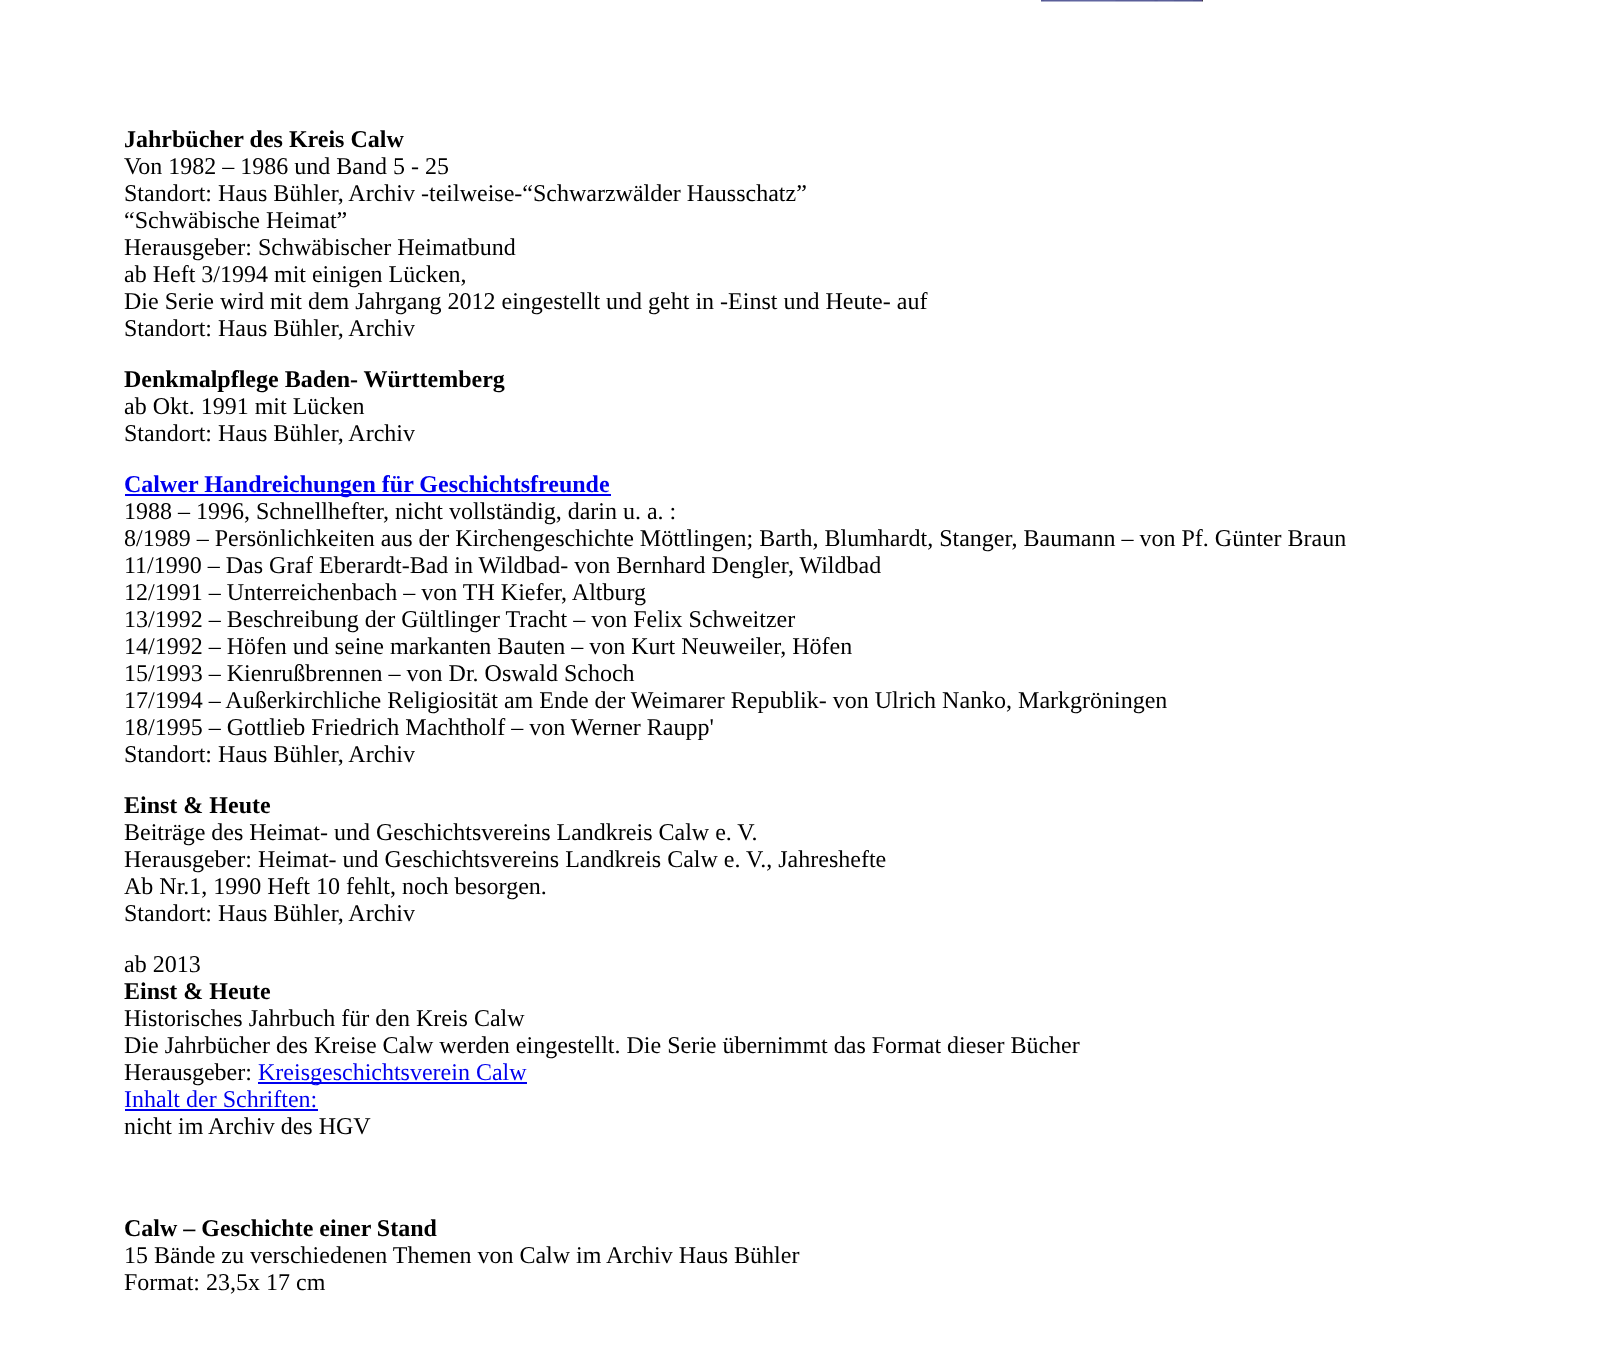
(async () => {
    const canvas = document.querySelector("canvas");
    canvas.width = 1607;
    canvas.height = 1353;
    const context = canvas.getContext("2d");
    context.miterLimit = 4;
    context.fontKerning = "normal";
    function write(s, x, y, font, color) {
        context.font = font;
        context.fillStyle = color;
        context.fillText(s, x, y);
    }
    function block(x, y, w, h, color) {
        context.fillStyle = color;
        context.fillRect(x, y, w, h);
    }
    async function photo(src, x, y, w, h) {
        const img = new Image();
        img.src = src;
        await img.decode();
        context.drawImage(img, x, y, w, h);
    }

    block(0, 0, 1607, 1353, "rgb(255, 255, 255)");
    await photo("media/1.png", 1041, 0, 162, 2);
    write("Jahrbücher des Kreis Calw", 124, 147, "bold 24px Liberation Serif", "rgb(0, 0, 0)");
    write("Von 1982 – 1986 und Band 5 - 25", 124, 174, "24px Liberation Serif", "rgb(0, 0, 0)");
    write("Standort: Haus Bühler, Archiv -teilweise-“Schwarzwälder Hausschatz”", 124, 201, "24px Liberation Serif", "rgb(0, 0, 0)");
    write("“Schwäbische Heimat”", 124, 228, "24px Liberation Serif", "rgb(0, 0, 0)");
    write("Herausgeber: Schwäbischer Heimatbund", 124, 255, "24px Liberation Serif", "rgb(0, 0, 0)");
    write("ab Heft 3/1994 mit einigen Lücken,", 124, 282, "24px Liberation Serif", "rgb(0, 0, 0)");
    write("Die Serie wird mit dem Jahrgang 2012 eingestellt und geht in -Einst und Heute- auf", 124, 309, "24px Liberation Serif", "rgb(0, 0, 0)");
    write("Standort: Haus Bühler, Archiv", 124, 336, "24px Liberation Serif", "rgb(0, 0, 0)");
    write("Denkmalpflege Baden- Württemberg", 124, 387, "bold 24px Liberation Serif", "rgb(0, 0, 0)");
    write("ab Okt. 1991 mit Lücken", 124, 414, "24px Liberation Serif", "rgb(0, 0, 0)");
    write("Standort: Haus Bühler, Archiv", 124, 441, "24px Liberation Serif", "rgb(0, 0, 0)");
    block(125, 494, 486, 2, "rgb(0, 0, 238)");
    write("Calwer Handreichungen für Geschichtsfreunde", 124, 492, "bold 24px Liberation Serif", "rgb(0, 0, 238)");
    write("1988 – 1996, Schnellhefter, nicht vollständig, darin u. a. :", 124, 519, "24px Liberation Serif", "rgb(0, 0, 0)");
    write("8/1989 – Persönlichkeiten aus der Kirchengeschichte Möttlingen; Barth, Blumhardt, Stanger, Baumann – von Pf. Günter Braun", 124, 546, "24px Liberation Serif", "rgb(0, 0, 0)");
    write("11/1990 – Das Graf Eberardt-Bad in Wildbad- von Bernhard Dengler, Wildbad", 124, 573, "24px Liberation Serif", "rgb(0, 0, 0)");
    write("12/1991 – Unterreichenbach – von TH Kiefer, Altburg", 124, 600, "24px Liberation Serif", "rgb(0, 0, 0)");
    write("13/1992 – Beschreibung der Gültlinger Tracht – von Felix Schweitzer", 124, 627, "24px Liberation Serif", "rgb(0, 0, 0)");
    write("14/1992 – Höfen und seine markanten Bauten – von Kurt Neuweiler, Höfen", 124, 654, "24px Liberation Serif", "rgb(0, 0, 0)");
    write("15/1993 – Kienrußbrennen – von Dr. Oswald Schoch", 124, 681, "24px Liberation Serif", "rgb(0, 0, 0)");
    write("17/1994 – Außerkirchliche Religiosität am Ende der Weimarer Republik- von Ulrich Nanko, Markgröningen", 124, 708, "24px Liberation Serif", "rgb(0, 0, 0)");
    write("18/1995 – Gottlieb Friedrich Machtholf – von Werner Raupp'", 124, 735, "24px Liberation Serif", "rgb(0, 0, 0)");
    write("Standort: Haus Bühler, Archiv", 124, 762, "24px Liberation Serif", "rgb(0, 0, 0)");
    write("Einst & Heute", 124, 813, "bold 24px Liberation Serif", "rgb(0, 0, 0)");
    write("Beiträge des Heimat- und Geschichtsvereins Landkreis Calw e. V.", 124, 840, "24px Liberation Serif", "rgb(0, 0, 0)");
    write("Herausgeber: Heimat- und Geschichtsvereins Landkreis Calw e. V., Jahreshefte", 124, 867, "24px Liberation Serif", "rgb(0, 0, 0)");
    write("Ab Nr.1, 1990 Heft 10 fehlt, noch besorgen.", 124, 894, "24px Liberation Serif", "rgb(0, 0, 0)");
    write("Standort: Haus Bühler, Archiv", 124, 921, "24px Liberation Serif", "rgb(0, 0, 0)");
    write("ab 2013", 124, 972, "24px Liberation Serif", "rgb(0, 0, 0)");
    write("Einst & Heute", 124, 999, "bold 24px Liberation Serif", "rgb(0, 0, 0)");
    write("Historisches Jahrbuch für den Kreis Calw", 124, 1026, "24px Liberation Serif", "rgb(0, 0, 0)");
    write("Die Jahrbücher des Kreise Calw werden eingestellt. Die Serie übernimmt das Format dieser Bücher", 124, 1053, "24px Liberation Serif", "rgb(0, 0, 0)");
    write("Herausgeber:", 124, 1080, "24px Liberation Serif", "rgb(0, 0, 0)");
    block(258, 1082, 269, 2, "rgb(0, 0, 238)");
    write("Kreisgeschichtsverein Calw", 258, 1080, "24px Liberation Serif", "rgb(0, 0, 238)");
    write("Inhalt der Schriften:", 124, 1107, "24px Liberation Serif", "rgb(0, 0, 238)");
    block(125, 1109, 193, 2, "rgb(0, 0, 238)");
    write("nicht im Archiv des HGV", 124, 1134, "24px Liberation Serif", "rgb(0, 0, 0)");
    write("Calw – Geschichte einer Stand", 124, 1236, "bold 24px Liberation Serif", "rgb(0, 0, 0)");
    write("15 Bände zu verschiedenen Themen von Calw im Archiv Haus Bühler", 124, 1263, "24px Liberation Serif", "rgb(0, 0, 0)");
    write("Format: 23,5x 17 cm", 124, 1290, "24px Liberation Serif", "rgb(0, 0, 0)");
})();
